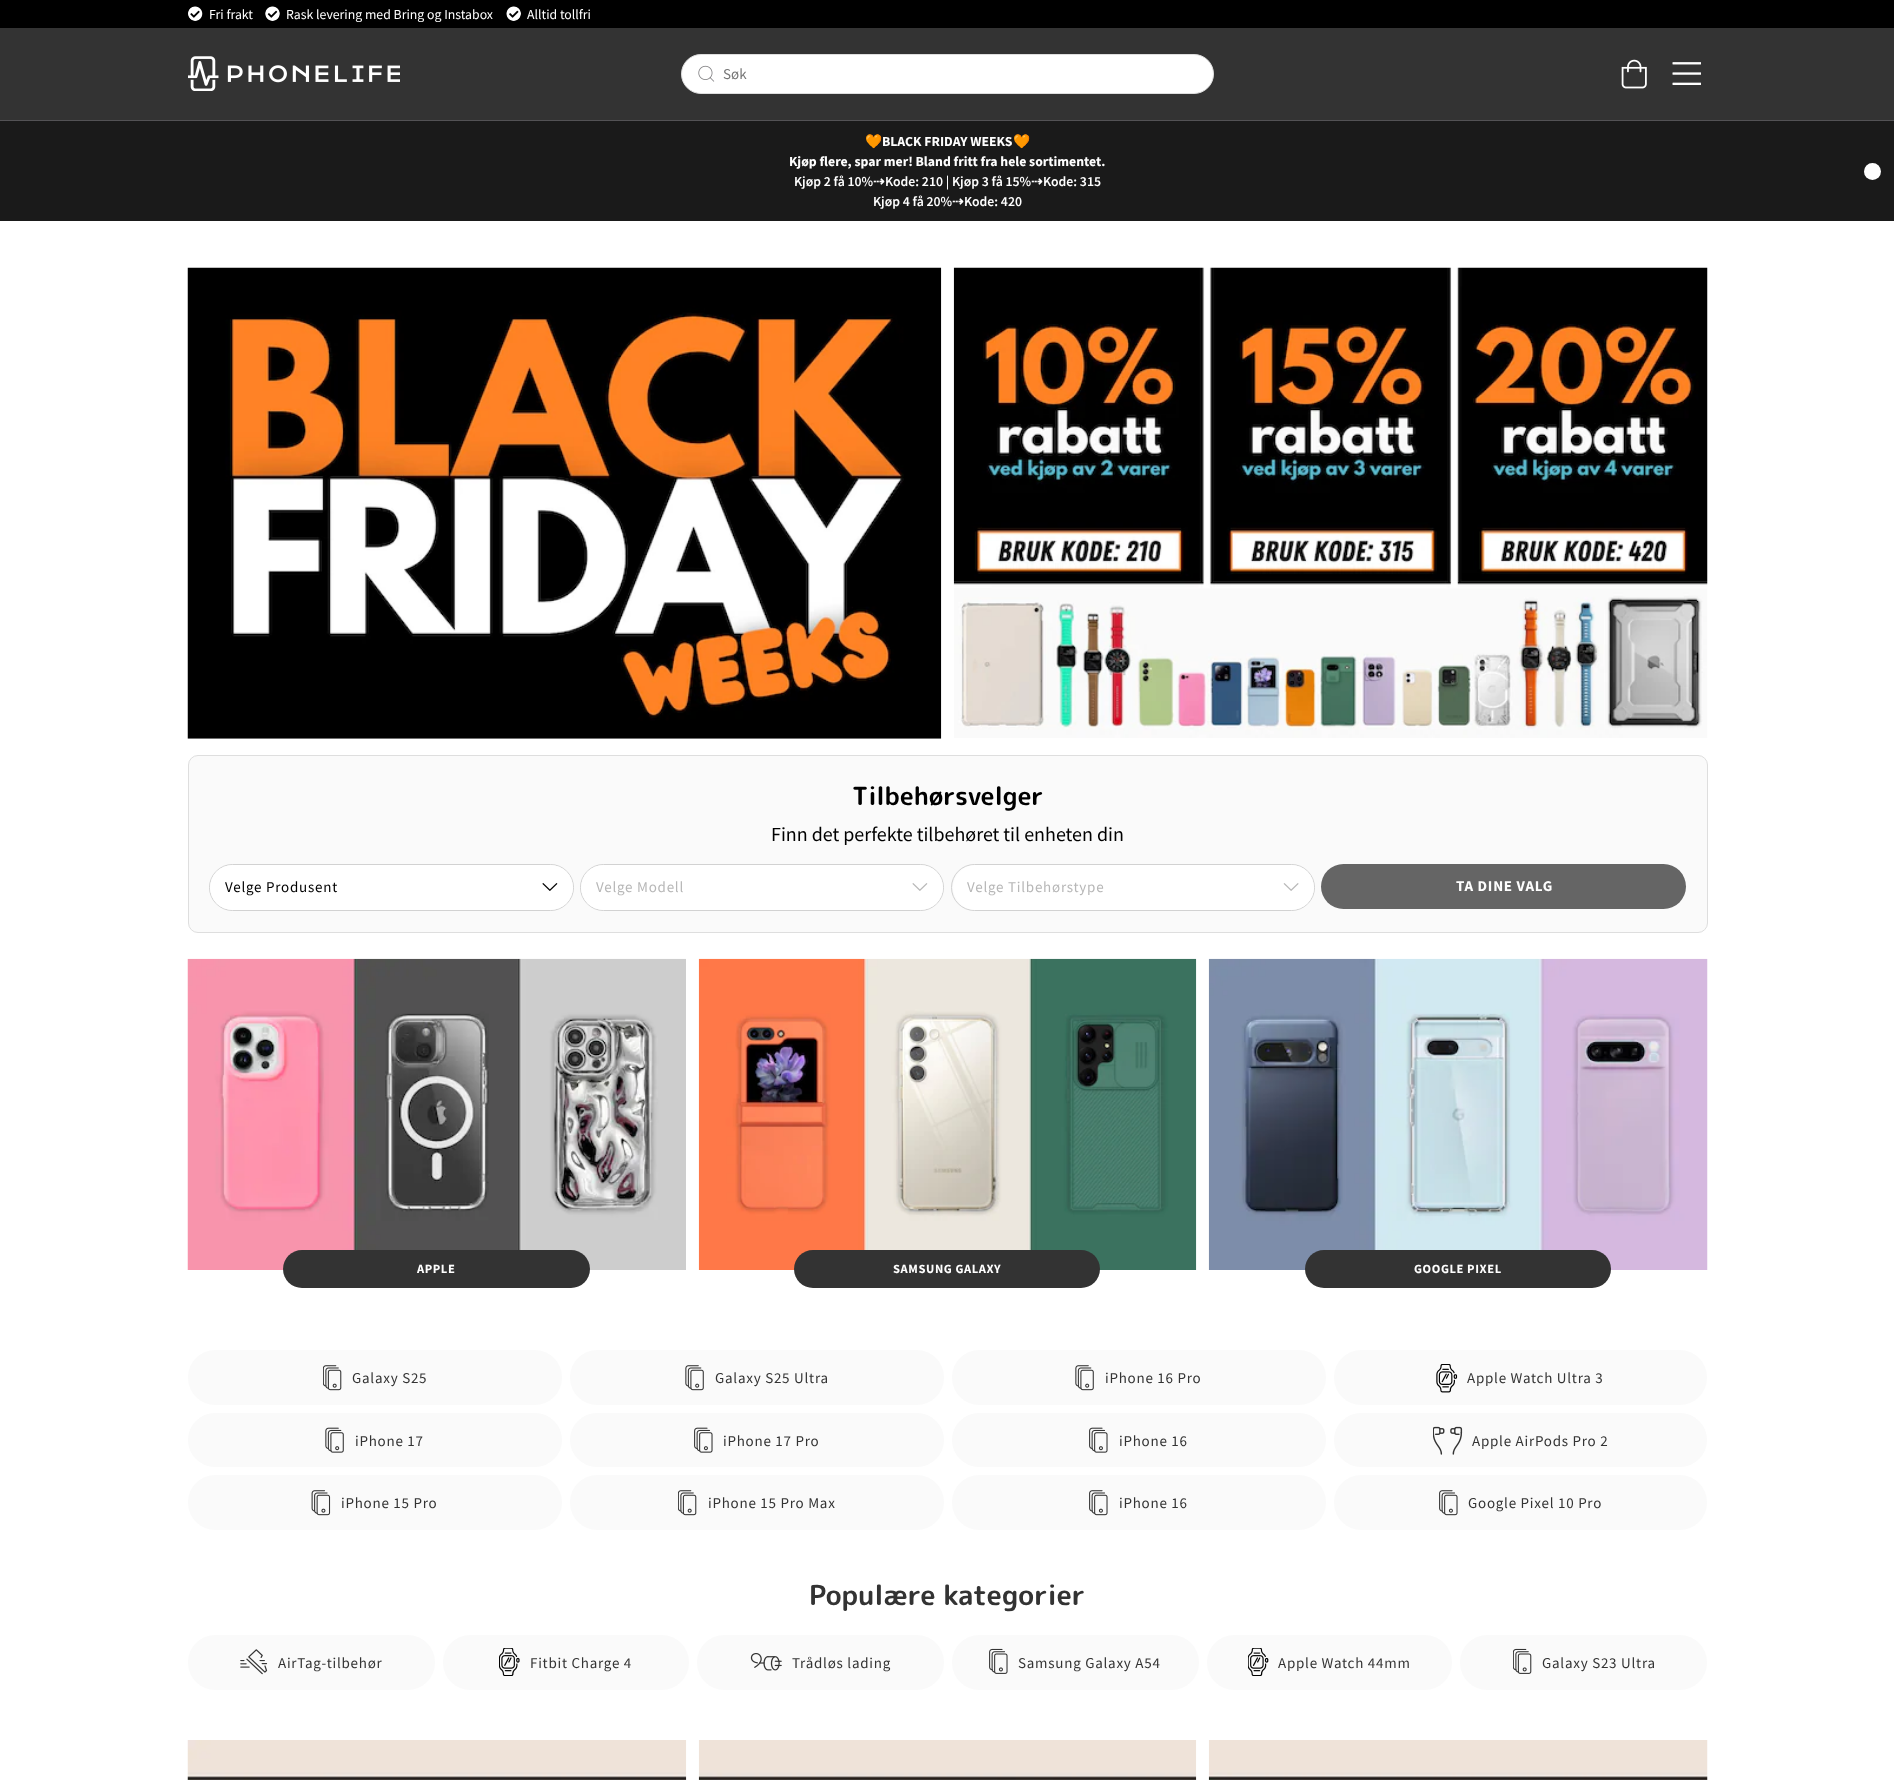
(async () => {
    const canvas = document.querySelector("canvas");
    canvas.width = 1894;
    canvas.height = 1780;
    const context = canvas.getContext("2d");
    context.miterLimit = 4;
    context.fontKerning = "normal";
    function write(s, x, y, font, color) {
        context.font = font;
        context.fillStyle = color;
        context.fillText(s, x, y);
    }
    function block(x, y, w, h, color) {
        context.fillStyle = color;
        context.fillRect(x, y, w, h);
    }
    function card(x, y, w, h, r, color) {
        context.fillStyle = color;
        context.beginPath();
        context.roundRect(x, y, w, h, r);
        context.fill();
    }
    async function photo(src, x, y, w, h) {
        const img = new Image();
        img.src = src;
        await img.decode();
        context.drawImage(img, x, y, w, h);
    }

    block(0, 0, 1894, 1780, "rgb(255, 255, 255)");
    block(0, 0, 1894, 28, "rgb(0, 0, 0)");
    await photo("media/1.png", 188, 6, 15, 15);
    write("Fri frakt", 209, 19, "13.75px Source Sans Pro", "rgb(254, 254, 254)");
    await photo("media/2.png", 265, 6, 15, 15);
    write("Rask levering med Bring og Instabox", 286, 19, "13.75px Source Sans Pro", "rgb(254, 254, 254)");
    await photo("media/3.png", 506, 6, 15, 15);
    write("Alltid tollfri", 527, 19, "13.75px Source Sans Pro", "rgb(254, 254, 254)");
    block(0, 28, 1894, 92, "rgb(51, 51, 51)");
    block(0, 120, 1894, 1, "rgb(83, 82, 85)");
    await photo("media/4.png", 188, 56, 212, 35);
    context.fillStyle = "rgb(255, 255, 255)";
    context.beginPath();
    context.roundRect(681.5, 54.5, 532, 39, 19.5);
    context.fill();
    context.strokeStyle = "rgb(222, 222, 222)";
    context.stroke();
    await photo("media/5.png", 698, 65, 17, 17);
    write("Søk", 723, 79, "15px Source Sans Pro", "rgb(117, 117, 117)");
    await photo("media/6.png", 1621, 59, 26, 30);
    await photo("media/7.png", 1672, 62, 29, 23);
    block(0, 121, 1894, 100, "rgb(26, 26, 26)");
    write("🧡", 865, 146, "bold 13.75px Noto Color Emoji", "rgb(254, 254, 254)");
    write("BLACK FRIDAY WEEKS", 882, 146, "bold 13.75px Source Sans Pro", "rgb(254, 254, 254)");
    write("🧡", 1013, 146, "bold 13.75px Noto Color Emoji", "rgb(254, 254, 254)");
    write("Kjøp flere, spar mer! Bland fritt fra hele sortimentet.", 789, 166, "bold 13.75px Source Sans Pro", "rgb(254, 254, 254)");
    write("Kjøp 2 få 10%", 794, 186, "600 13.75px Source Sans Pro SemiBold", "rgb(254, 254, 254)");
    write("⇢", 873, 186, "bold 13.75px DejaVu Sans", "rgb(254, 254, 254)");
    write("Kode: 210 | Kjøp 3 få 15%", 885, 186, "600 13.75px Source Sans Pro SemiBold", "rgb(254, 254, 254)");
    write("⇢", 1031, 186, "bold 13.75px DejaVu Sans", "rgb(254, 254, 254)");
    write("Kode: 315", 1043, 186, "600 13.75px Source Sans Pro SemiBold", "rgb(254, 254, 254)");
    write("Kjøp 4 få 20%", 873, 206, "600 13.75px Source Sans Pro SemiBold", "rgb(254, 254, 254)");
    write("⇢", 952, 206, "bold 13.75px DejaVu Sans", "rgb(254, 254, 254)");
    write("Kode: 420", 964, 206, "600 13.75px Source Sans Pro SemiBold", "rgb(254, 254, 254)");
    context.fillStyle = "rgb(255, 255, 255)";
    context.beginPath();
    context.arc(1872.5, 171.5, 8.5, 0, Math.PI * 2);
    context.fill();
    await photo("media/8.png", 187, 267, 755, 472);
    await photo("media/9.png", 953, 267, 755, 471);
    context.fillStyle = "rgb(250, 250, 250)";
    context.beginPath();
    context.roundRect(188.5, 755.5, 1519, 177, 9.5);
    context.fill();
    context.stroke();
    write("Tilbehørsvelger", 852, 805, "bold 25px 'Rounded Mplus 1c Bold'", "rgb(0, 0, 0)");
    write("Finn det perfekte tilbehøret til enheten din", 771, 841, "20px Source Sans Pro", "rgb(0, 0, 0)");
    context.beginPath();
    context.roundRect(209.5, 864.5, 364, 46, 23);
    context.strokeStyle = "rgb(210, 210, 210)";
    context.stroke();
    card(210, 865, 363, 45, 22.5, "rgb(255, 255, 255)");
    context.letterSpacing = "0.75px";
    write("Velge Produsent", 225, 892, "15px Source Sans Pro", "rgb(0, 0, 0)");
    await photo("media/10.png", 542, 883, 16, 8);
    context.beginPath();
    context.roundRect(580.5, 864.5, 363, 46, 23);
    context.stroke();
    card(581, 865, 362, 45, 22.5, "rgb(255, 255, 255)");
    write("Velge Modell", 596, 892, "15px Source Sans Pro", "rgb(183, 183, 183)");
    await photo("media/11.png", 912, 883, 16, 8);
    context.beginPath();
    context.roundRect(951.5, 864.5, 363, 46, 23);
    context.stroke();
    card(953, 865, 361, 45, 22.5, "rgb(255, 255, 255)");
    write("Velge Tilbehørstype", 967, 892, "15px Source Sans Pro", "rgb(183, 183, 183)");
    await photo("media/12.png", 1283, 883, 16, 8);
    card(1321, 864, 365, 45, 22.5, "rgb(101, 101, 101)");
    write("TA DINE VALG", 1456, 891, "bold 15px Source Sans Pro", "rgb(254, 254, 254)");
    await photo("media/13.png", 187, 958, 499, 312);
    card(283, 1250, 307, 38, 19, "rgb(51, 51, 51)");
    context.letterSpacing = "0.6px";
    write("APPLE", 417, 1273, "bold 12.5px Source Sans Pro", "rgb(254, 254, 254)");
    await photo("media/14.png", 698, 958, 499, 312);
    card(794, 1250, 306, 38, 19, "rgb(51, 51, 51)");
    write("SAMSUNG GALAXY", 893, 1273, "bold 12.5px Source Sans Pro", "rgb(254, 254, 254)");
    await photo("media/15.png", 1208, 958, 500, 312);
    card(1305, 1250, 306, 38, 19, "rgb(51, 51, 51)");
    write("GOOGLE PIXEL", 1414, 1273, "bold 12.5px Source Sans Pro", "rgb(254, 254, 254)");
    context.fillStyle = "rgb(250, 250, 250)";
    context.beginPath();
    context.roundRect(186, 1348, 378, 59, 29.5);
    context.fill();
    context.strokeStyle = "rgb(255, 255, 255)";
    context.lineWidth = 4;
    context.stroke();
    await photo("media/16.png", 323, 1365, 19, 26);
    context.letterSpacing = "0.75px";
    write("Galaxy S25", 352, 1383, "15px Source Sans Pro", "rgb(51, 51, 51)");
    context.fillStyle = "rgb(250, 250, 250)";
    context.beginPath();
    context.roundRect(568, 1348, 378, 59, 29.5);
    context.fill();
    context.stroke();
    await photo("media/17.png", 685, 1365, 19, 26);
    write("Galaxy S25 Ultra", 715, 1383, "15px Source Sans Pro", "rgb(51, 51, 51)");
    context.fillStyle = "rgb(250, 250, 250)";
    context.beginPath();
    context.roundRect(950, 1348, 378, 59, 29.5);
    context.fill();
    context.stroke();
    await photo("media/17.png", 1075, 1365, 19, 26);
    write("iPhone 16 Pro", 1105, 1383, "15px Source Sans Pro", "rgb(51, 51, 51)");
    context.fillStyle = "rgb(250, 250, 250)";
    context.beginPath();
    context.roundRect(1332, 1348, 377, 59, 29.5);
    context.fill();
    context.stroke();
    await photo("media/18.png", 1436, 1364, 22, 29);
    write("Apple Watch Ultra 3", 1467, 1383, "15px Source Sans Pro", "rgb(51, 51, 51)");
    context.fillStyle = "rgb(250, 250, 250)";
    context.beginPath();
    context.roundRect(186, 1411, 378, 58, 29);
    context.fill();
    context.stroke();
    await photo("media/19.png", 325, 1427, 19, 26);
    write("iPhone 17", 355, 1446, "15px Source Sans Pro", "rgb(51, 51, 51)");
    context.fillStyle = "rgb(250, 250, 250)";
    context.beginPath();
    context.roundRect(568, 1411, 378, 58, 29);
    context.fill();
    context.stroke();
    await photo("media/20.png", 694, 1427, 19, 26);
    write("iPhone 17 Pro", 723, 1446, "15px Source Sans Pro", "rgb(51, 51, 51)");
    context.fillStyle = "rgb(250, 250, 250)";
    context.beginPath();
    context.roundRect(950, 1411, 378, 58, 29);
    context.fill();
    context.stroke();
    await photo("media/20.png", 1089, 1427, 19, 26);
    write("iPhone 16", 1119, 1446, "15px Source Sans Pro", "rgb(51, 51, 51)");
    context.fillStyle = "rgb(250, 250, 250)";
    context.beginPath();
    context.roundRect(1332, 1411, 377, 58, 29);
    context.fill();
    context.stroke();
    await photo("media/21.png", 1433, 1426, 30, 29);
    write("Apple AirPods Pro 2", 1472, 1446, "15px Source Sans Pro", "rgb(51, 51, 51)");
    context.fillStyle = "rgb(250, 250, 250)";
    context.beginPath();
    context.roundRect(186, 1473, 378, 59, 29.5);
    context.fill();
    context.stroke();
    await photo("media/22.png", 311, 1490, 20, 26);
    write("iPhone 15 Pro", 341, 1508, "15px Source Sans Pro", "rgb(51, 51, 51)");
    context.fillStyle = "rgb(250, 250, 250)";
    context.beginPath();
    context.roundRect(568, 1473, 378, 59, 29.5);
    context.fill();
    context.stroke();
    await photo("media/16.png", 678, 1490, 19, 26);
    write("iPhone 15 Pro Max", 708, 1508, "15px Source Sans Pro", "rgb(51, 51, 51)");
    context.fillStyle = "rgb(250, 250, 250)";
    context.beginPath();
    context.roundRect(950, 1473, 378, 59, 29.5);
    context.fill();
    context.stroke();
    await photo("media/23.png", 1089, 1490, 19, 26);
    write("iPhone 16", 1119, 1508, "15px Source Sans Pro", "rgb(51, 51, 51)");
    context.fillStyle = "rgb(250, 250, 250)";
    context.beginPath();
    context.roundRect(1332, 1473, 377, 59, 29.5);
    context.fill();
    context.stroke();
    await photo("media/23.png", 1439, 1490, 19, 26);
    write("Google Pixel 10 Pro", 1468, 1508, "15px Source Sans Pro", "rgb(51, 51, 51)");
    context.letterSpacing = "0px";
    write("Populære kategorier", 809, 1605, "bold 27.5px 'Rounded Mplus 1c Bold'", "rgb(51, 51, 51)");
    context.fillStyle = "rgb(250, 250, 250)";
    context.beginPath();
    context.roundRect(186, 1633, 251, 59, 29.5);
    context.fill();
    context.stroke();
    await photo("media/24.png", 240, 1649, 28, 26);
    context.letterSpacing = "0.75px";
    write("AirTag-tilbehør", 278, 1668, "15px Source Sans Pro", "rgb(51, 51, 51)");
    context.fillStyle = "rgb(250, 250, 250)";
    context.beginPath();
    context.roundRect(441, 1633, 250, 59, 29.5);
    context.fill();
    context.stroke();
    await photo("media/25.png", 499, 1648, 21, 28);
    write("Fitbit Charge 4", 530, 1668, "15px Source Sans Pro", "rgb(51, 51, 51)");
    context.fillStyle = "rgb(250, 250, 250)";
    context.beginPath();
    context.roundRect(695, 1633, 251, 59, 29.5);
    context.fill();
    context.stroke();
    await photo("media/26.png", 750, 1653, 32, 18);
    write("Trådløs lading", 792, 1668, "15px Source Sans Pro", "rgb(51, 51, 51)");
    context.fillStyle = "rgb(250, 250, 250)";
    context.beginPath();
    context.roundRect(950, 1633, 251, 59, 29.5);
    context.fill();
    context.stroke();
    await photo("media/27.png", 989, 1648, 19, 26);
    write("Samsung Galaxy A54", 1018, 1668, "15px Source Sans Pro", "rgb(51, 51, 51)");
    context.fillStyle = "rgb(250, 250, 250)";
    context.beginPath();
    context.roundRect(1205, 1633, 249, 59, 29.5);
    context.fill();
    context.stroke();
    await photo("media/28.png", 1248, 1648, 21, 28);
    write("Apple Watch 44mm", 1278, 1668, "15px Source Sans Pro", "rgb(51, 51, 51)");
    context.fillStyle = "rgb(250, 250, 250)";
    context.beginPath();
    context.roundRect(1458, 1633, 251, 59, 29.5);
    context.fill();
    context.stroke();
    await photo("media/29.png", 1513, 1648, 19, 26);
    write("Galaxy S23 Ultra", 1542, 1668, "15px Source Sans Pro", "rgb(51, 51, 51)");
    await photo("media/30.png", 187, 1740, 500, 40);
    await photo("media/31.png", 698, 1740, 499, 40);
    await photo("media/32.png", 1208, 1740, 500, 40);
})();
